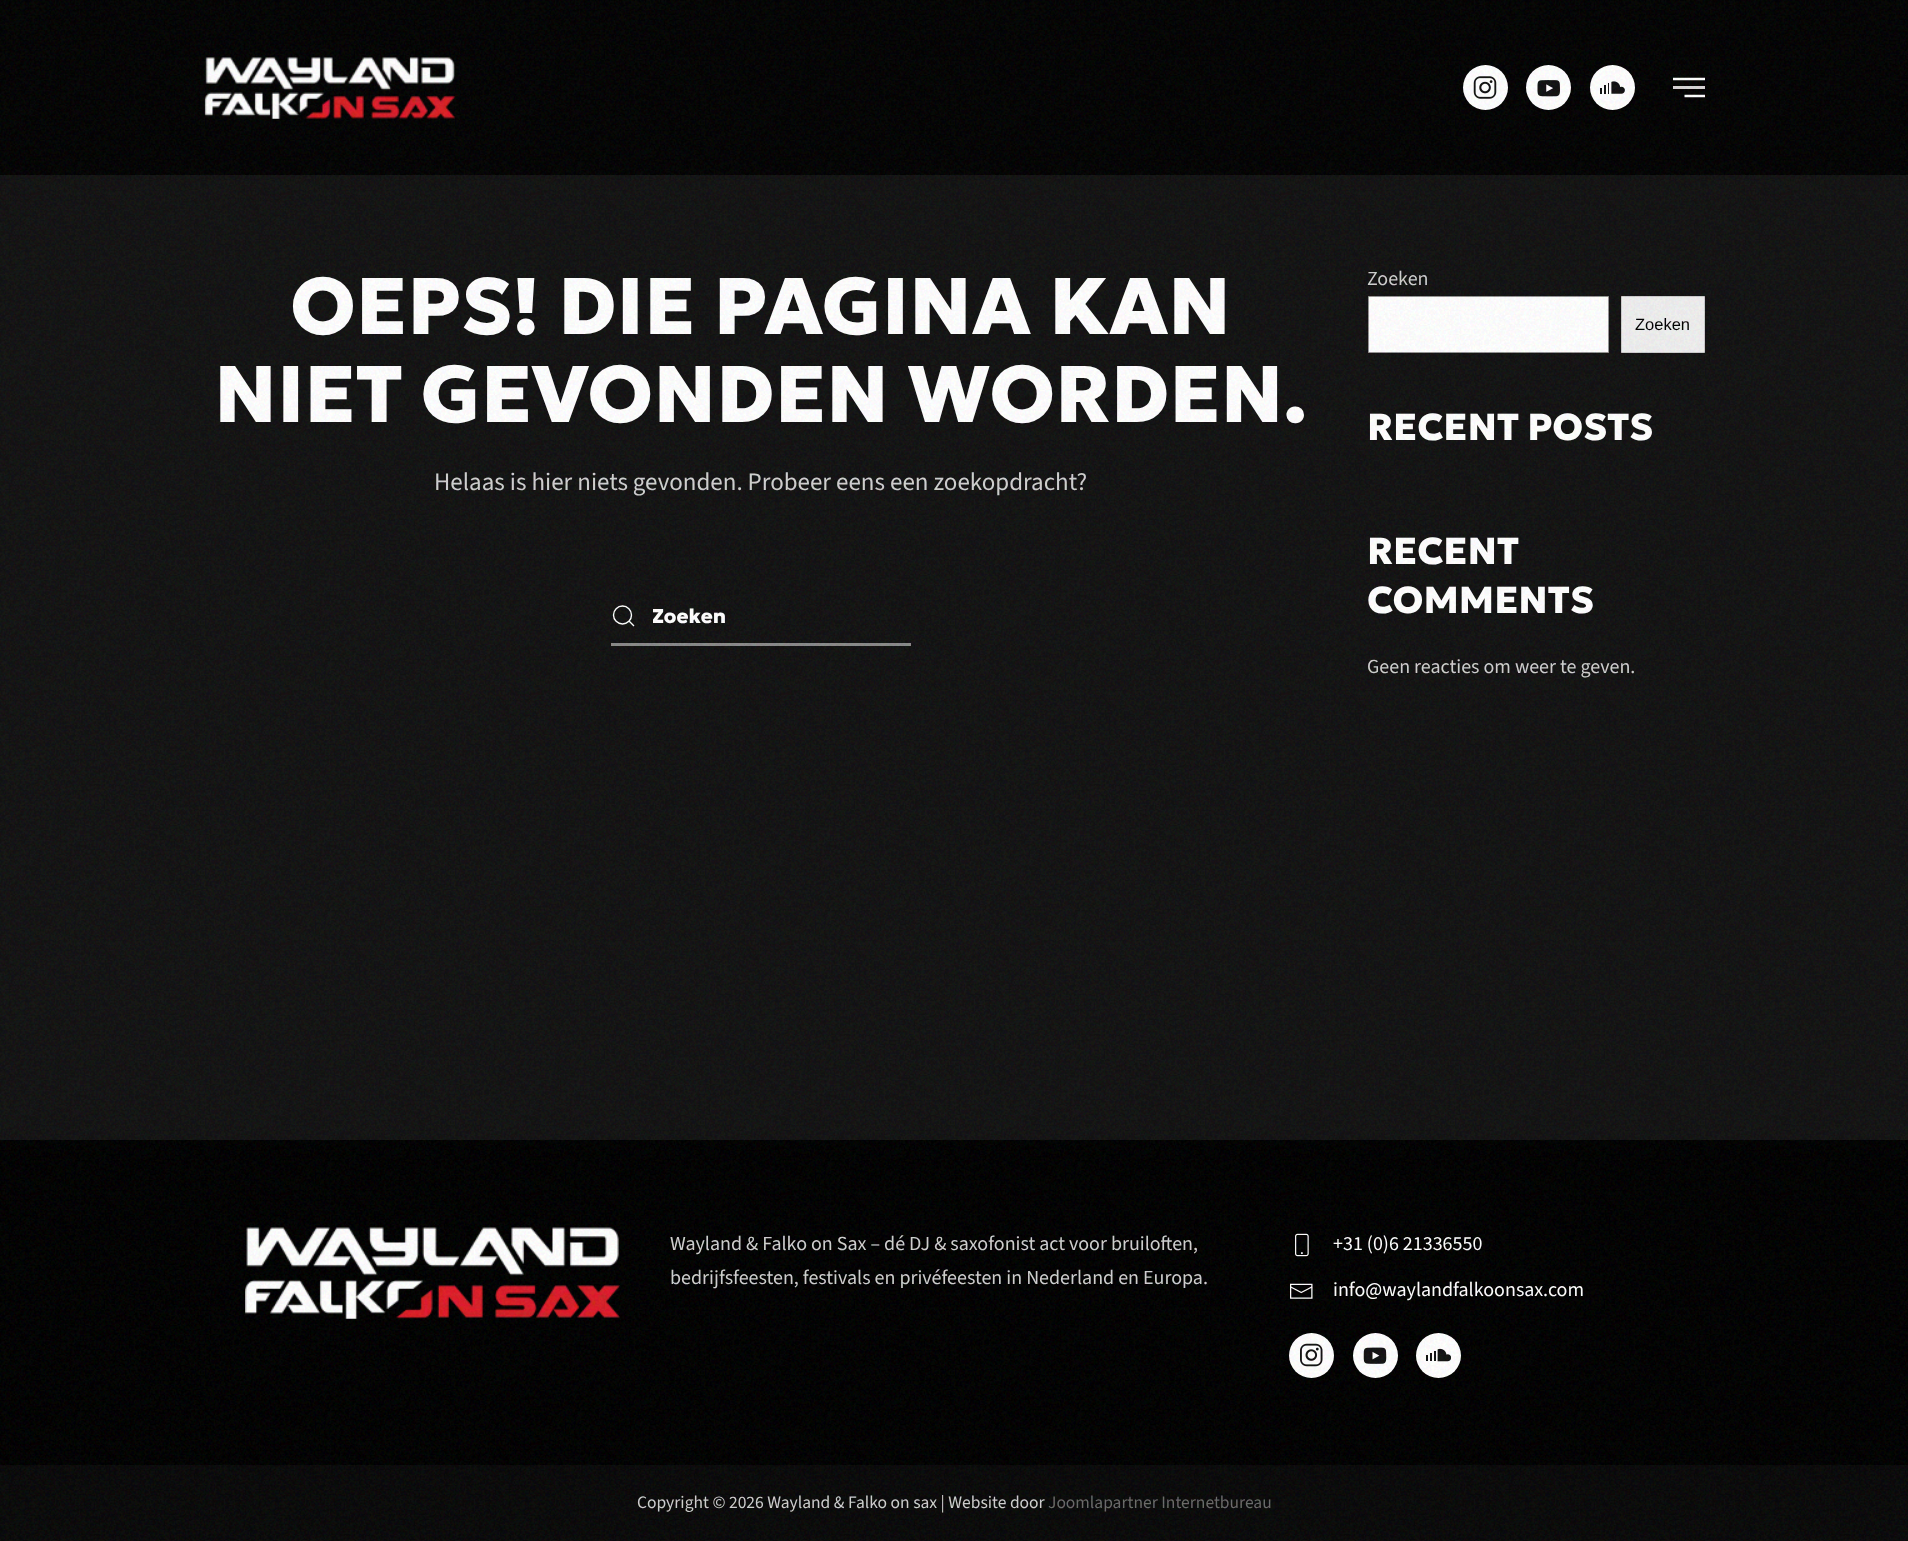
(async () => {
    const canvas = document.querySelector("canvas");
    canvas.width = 1908;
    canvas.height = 1541;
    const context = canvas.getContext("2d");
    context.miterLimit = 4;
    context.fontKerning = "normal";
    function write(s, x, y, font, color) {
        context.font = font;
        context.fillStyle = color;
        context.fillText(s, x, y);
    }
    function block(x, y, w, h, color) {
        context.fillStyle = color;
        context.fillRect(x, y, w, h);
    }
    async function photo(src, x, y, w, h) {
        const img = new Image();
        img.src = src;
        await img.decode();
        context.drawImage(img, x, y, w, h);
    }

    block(0, 0, 1908, 1541, "rgb(18, 18, 18)");
    block(0, 0, 1908, 175, "rgb(3, 3, 3)");
    await photo("media/2.png", 204, 57, 251, 62);
    context.fillStyle = "rgb(255, 255, 255)";
    context.beginPath();
    context.arc(1485.5, 87.5, 22.5, 0, Math.PI * 2);
    context.fill();
    await photo("media/3.png", 1473, 76, 24, 23);
    context.beginPath();
    context.arc(1548.5, 87.5, 22.5, 0, Math.PI * 2);
    context.fill();
    await photo("media/4.png", 1537, 80, 23, 17);
    context.beginPath();
    context.arc(1612.5, 87.5, 22.5, 0, Math.PI * 2);
    context.fill();
    await photo("media/5.png", 1600, 81, 25, 13);
    context.save();
    context.beginPath();
    context.rect(1673, 71, 32, 33);
    context.clip();
    context.beginPath();
    context.moveTo(1672.5, 79);
    context.lineTo(1705, 79);
    context.strokeStyle = "rgb(255, 255, 255)";
    context.lineWidth = 2.5;
    context.stroke();
    context.restore();
    block(1673, 86, 32, 3, "rgb(213, 213, 213)");
    context.beginPath();
    context.moveTo(1684.5, 96);
    context.lineTo(1705, 96);
    context.strokeStyle = "rgb(255, 255, 255)";
    context.lineWidth = 2.5;
    context.stroke();
    write("OEPS! DIE PAGINA KAN", 290, 334, "100 80px Geologica", "rgb(255, 255, 255)");
    write("NIET GEVONDEN WORDEN.", 214, 422, "100 80px Geologica", "rgb(255, 255, 255)");
    write("Helaas is hier niets gevonden. Probeer eens een zoekopdracht?", 434, 490, "200 25px 'Source Sans 3'", "rgb(208, 208, 208)");
    context.beginPath();
    context.arc(622.5, 615, 9, 0, Math.PI * 2);
    context.lineWidth = 1.4;
    context.stroke();
    context.beginPath();
    context.moveTo(629, 621);
    context.lineTo(634, 626);
    context.closePath();
    context.stroke();
    block(611, 643, 300, 3, "rgb(137, 137, 137)");
    context.save();
    context.beginPath();
    context.rect(653, 603, 253, 25);
    context.clip();
    write("Zoeken", 652, 623, "100 20px Geologica", "rgb(255, 255, 255)");
    context.restore();
    write("Zoeken", 1367, 285, "200 20px 'Source Sans 3'", "rgb(208, 208, 208)");
    context.fillStyle = "rgb(255, 255, 255)";
    context.beginPath();
    context.rect(1368.5, 296.5, 240, 56);
    context.fill();
    context.strokeStyle = "rgb(148, 148, 148)";
    context.lineWidth = 1;
    context.stroke();
    context.fillStyle = "rgb(239, 239, 239)";
    context.beginPath();
    context.rect(1621.5, 296.5, 83, 56);
    context.fill();
    context.strokeStyle = "rgb(204, 204, 204)";
    context.stroke();
    write("Zoeken", 1635, 330, "16.5px Liberation Sans", "rgb(0, 0, 0)");
    write("RECENT POSTS", 1367, 440, "100 37.5px Geologica", "rgb(255, 255, 255)");
    write("RECENT", 1367, 564, "100 37.5px Geologica", "rgb(255, 255, 255)");
    write("COMMENTS", 1367, 613, "100 37.5px Geologica", "rgb(255, 255, 255)");
    write("Geen reacties om weer te geven.", 1367, 673, "200 20px 'Source Sans 3'", "rgb(208, 208, 208)");
    block(0, 1140, 1908, 325, "rgb(0, 0, 0)");
    await photo("media/6.png", 245, 1227, 375, 92);
    write("Wayland & Falko on Sax – dé DJ & saxofonist act voor bruiloften,", 670, 1250, "200 20px 'Source Sans 3'", "rgb(208, 208, 208)");
    write("bedrijfsfeesten, festivals en privéfeesten in Nederland en Europa.", 670, 1284, "200 20px 'Source Sans 3'", "rgb(208, 208, 208)");
    await photo("media/7.png", 1295, 1233, 14, 24);
    write("+31 (0)6 21336550", 1333, 1250, "200 20px 'Source Sans 3'", "rgb(255, 255, 255)");
    await photo("media/8.png", 1290, 1283, 23, 16);
    write("info@waylandfalkoonsax.com", 1333, 1296, "200 20px 'Source Sans 3'", "rgb(255, 255, 255)");
    context.beginPath();
    context.arc(1311.5, 1355.5, 22.5, 0, Math.PI * 2);
    context.fill();
    await photo("media/9.png", 1300, 1343, 23, 24);
    context.beginPath();
    context.arc(1375.5, 1355.5, 22.5, 0, Math.PI * 2);
    context.fill();
    await photo("media/10.png", 1363, 1347, 24, 17);
    context.beginPath();
    context.arc(1438.5, 1355.5, 22.5, 0, Math.PI * 2);
    context.fill();
    await photo("media/11.png", 1426, 1348, 25, 14);
    block(0, 1465, 1908, 76, "rgb(9, 9, 9)");
    write("Copyright © 2026 Wayland & Falko on sax | Website door", 637, 1508, "200 17.5px 'Source Sans 3'", "rgb(208, 208, 208)");
    write("Joomlapartner Internetbureau", 1048, 1508, "200 17.5px 'Source Sans 3'", "rgb(106, 106, 106)");
    await photo("media/1.png", 0, 0, 1908, 1541);
})();
